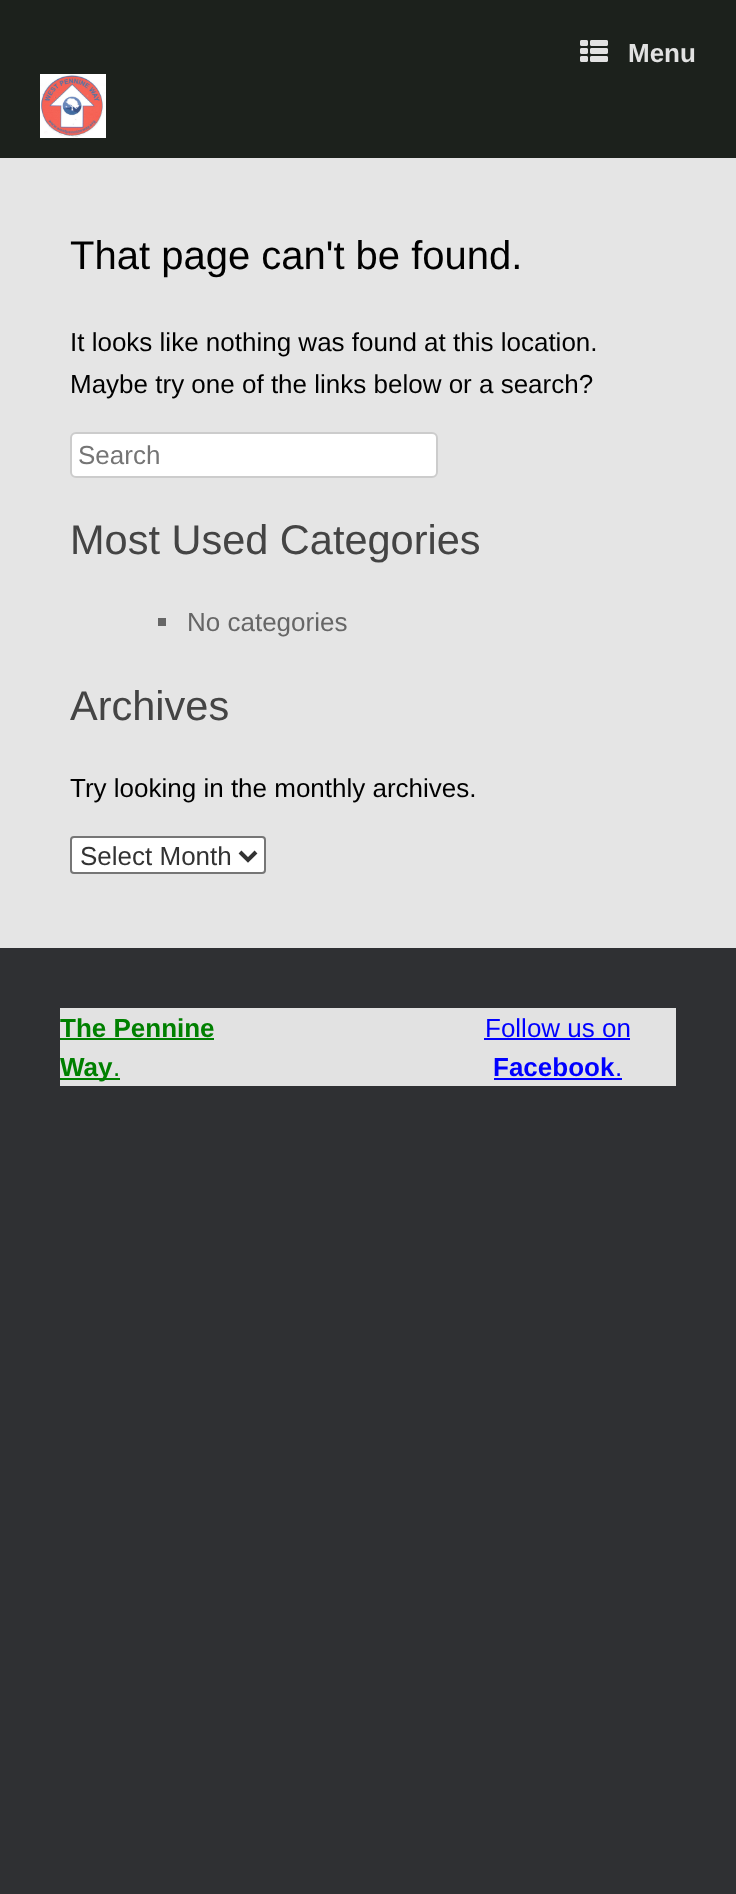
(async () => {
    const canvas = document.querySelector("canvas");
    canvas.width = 736;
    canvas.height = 1894;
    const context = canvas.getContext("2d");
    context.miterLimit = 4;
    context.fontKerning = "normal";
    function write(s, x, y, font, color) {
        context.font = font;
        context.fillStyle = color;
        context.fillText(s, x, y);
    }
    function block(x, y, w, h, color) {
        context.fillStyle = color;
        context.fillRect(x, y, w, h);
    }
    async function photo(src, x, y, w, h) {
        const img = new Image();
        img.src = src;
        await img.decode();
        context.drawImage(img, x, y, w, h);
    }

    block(0, 0, 736, 1894, "rgb(47, 48, 51)");
    block(0, 0, 736, 158, "rgb(28, 33, 28)");
    await photo("media/1.png", 580, 40, 28, 22);
    write("Menu", 628, 62, "bold 26px Liberation Sans", "rgb(226, 226, 226)");
    await photo("media/2.png", 40, 74, 66, 64);
    block(0, 158, 736, 790, "rgb(229, 229, 229)");
    write("That page can't be found.", 70, 269, "40px Liberation Sans", "rgb(0, 0, 0)");
    write("It looks like nothing was found at this location.", 70, 351, "26px Liberation Sans", "rgb(0, 0, 0)");
    write("Maybe try one of the links below or a search?", 70, 393, "26px Liberation Sans", "rgb(0, 0, 0)");
    context.fillStyle = "rgb(255, 255, 255)";
    context.beginPath();
    context.roundRect(71, 433, 366, 44, 5);
    context.fill();
    context.strokeStyle = "rgb(204, 204, 204)";
    context.lineWidth = 2;
    context.stroke();
    write("Search", 78, 464, "26px Liberation Sans", "rgb(117, 117, 117)");
    write("Most Used Categories", 70, 554, "41.5px Liberation Sans", "rgb(68, 68, 68)");
    block(158, 618, 8, 8, "rgb(102, 102, 102)");
    write("No categories", 187, 631, "26px Liberation Sans", "rgb(102, 102, 102)");
    write("Archives", 70, 720, "41.5px Liberation Sans", "rgb(68, 68, 68)");
    write("Try looking in the monthly archives.", 70, 797, "26px Liberation Sans", "rgb(0, 0, 0)");
    context.fillStyle = "rgb(255, 255, 255)";
    context.beginPath();
    context.roundRect(71, 837, 194, 36, 3);
    context.fill();
    context.strokeStyle = "rgb(118, 118, 118)";
    context.stroke();
    context.beginPath();
    context.moveTo(240, 852);
    context.lineTo(248, 860);
    context.lineTo(256, 852);
    context.strokeStyle = "rgb(51, 51, 51)";
    context.lineWidth = 4;
    context.stroke();
    write("Select Month", 80, 865, "26px Liberation Sans", "rgb(51, 51, 51)");
    block(60, 1008, 616, 78, "rgb(226, 226, 226)");
    write("The Pennine", 60, 1037, "bold 26px Liberation Sans", "rgb(0, 128, 0)");
    block(60, 1038, 154, 2, "rgb(0, 128, 0)");
    block(60, 1078, 52, 2, "rgb(0, 128, 0)");
    write("Way", 60, 1076, "bold 26px Liberation Sans", "rgb(0, 128, 0)");
    write(".", 113, 1076, "26px Liberation Sans", "rgb(0, 128, 0)");
    block(112, 1078, 8, 2, "rgb(0, 128, 0)");
    write("Follow us on", 485, 1037, "26px Liberation Sans", "rgb(0, 0, 255)");
    block(484, 1038, 146, 2, "rgb(0, 0, 255)");
    write("Facebook", 493, 1076, "bold 26px Liberation Sans", "rgb(0, 0, 255)");
    write(".", 615, 1076, "26px Liberation Sans", "rgb(0, 0, 255)");
    block(494, 1078, 128, 2, "rgb(0, 0, 255)");
})();
